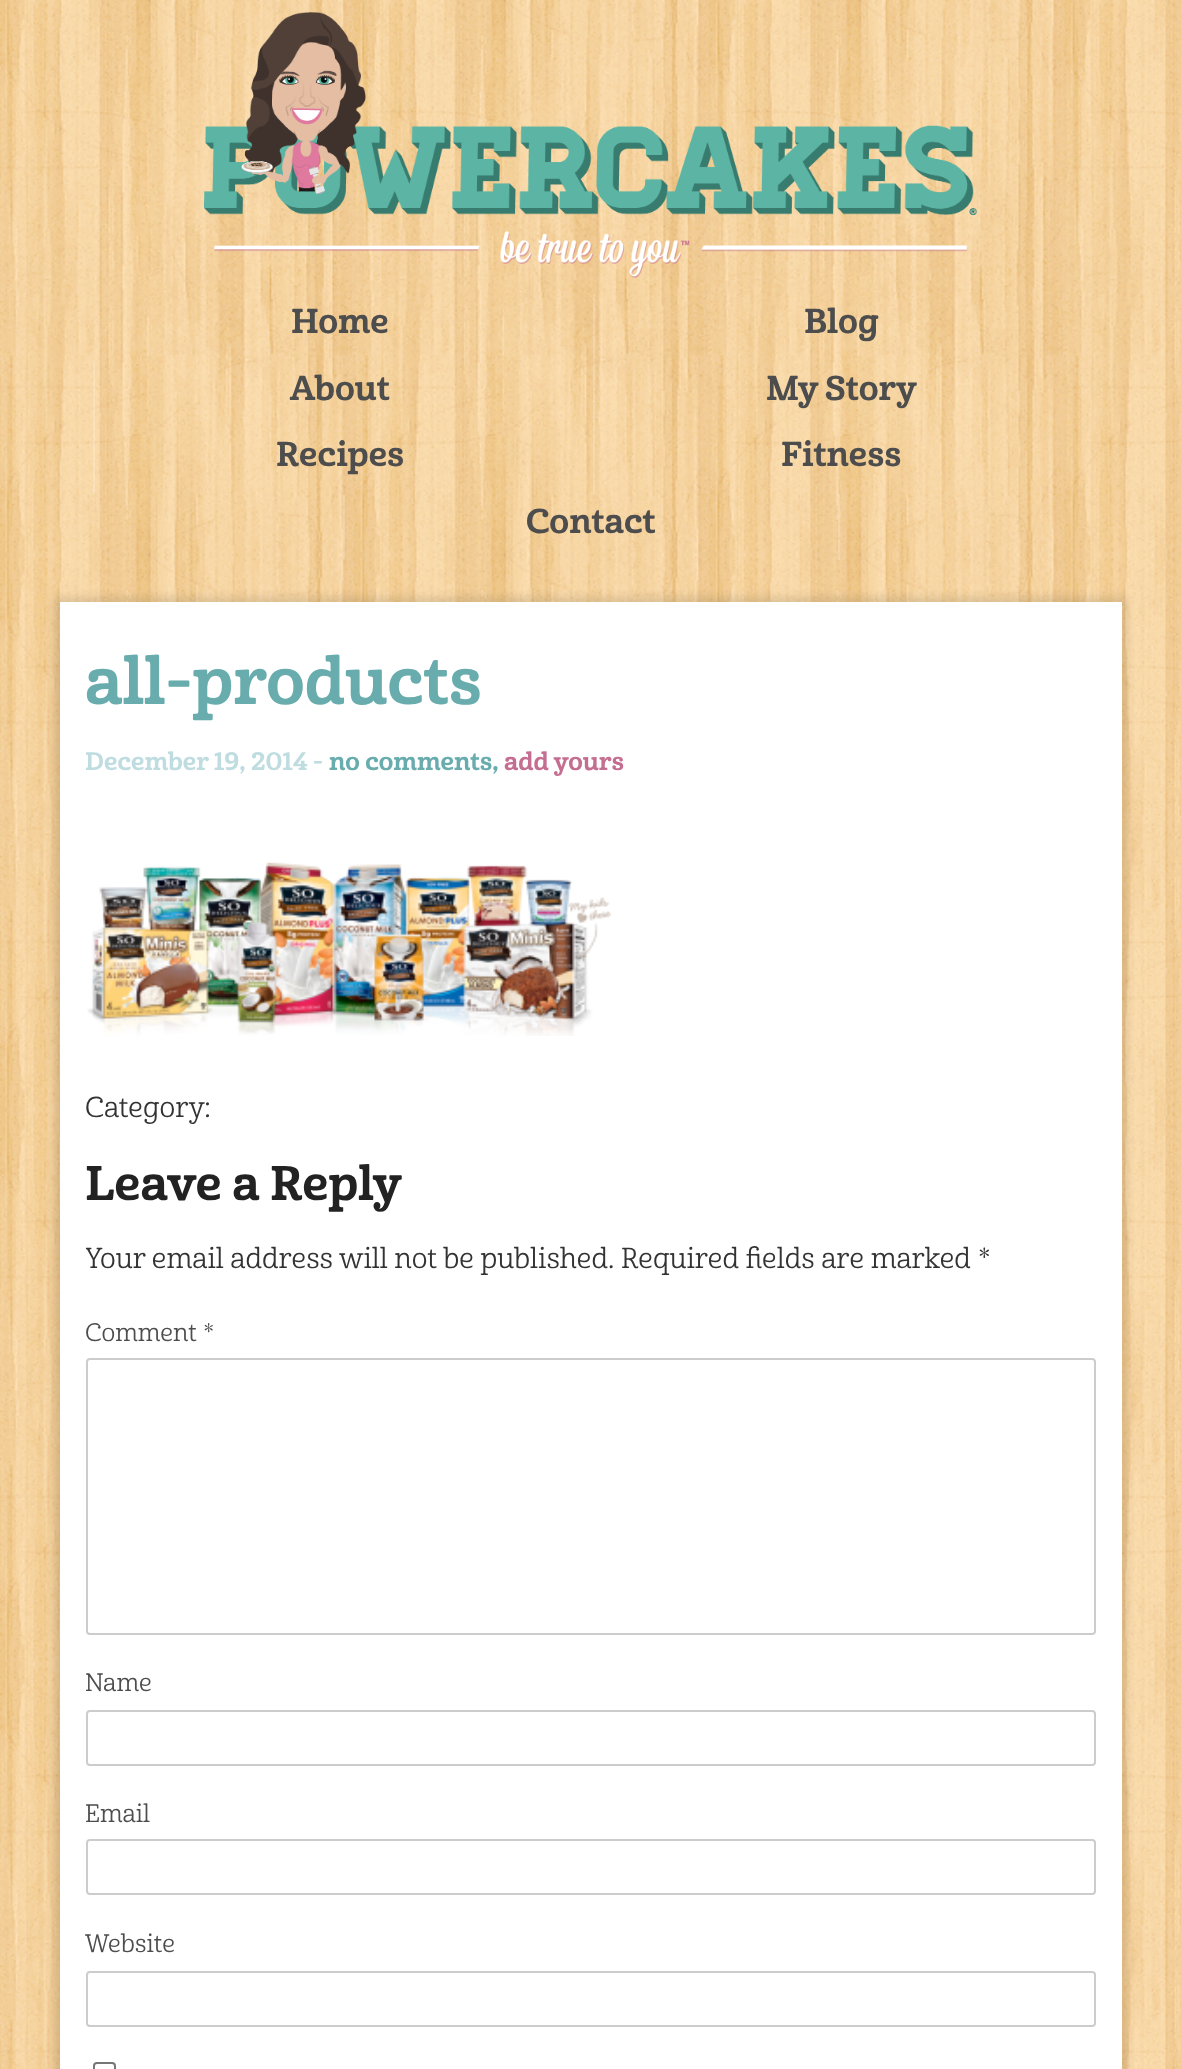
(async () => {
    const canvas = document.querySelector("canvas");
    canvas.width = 1181;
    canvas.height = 2069;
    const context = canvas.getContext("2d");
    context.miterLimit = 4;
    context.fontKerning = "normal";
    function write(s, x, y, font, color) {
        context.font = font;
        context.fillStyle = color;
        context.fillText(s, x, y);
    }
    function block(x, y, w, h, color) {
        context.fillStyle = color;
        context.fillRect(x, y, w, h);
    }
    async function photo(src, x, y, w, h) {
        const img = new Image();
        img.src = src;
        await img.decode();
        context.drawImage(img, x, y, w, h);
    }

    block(0, 0, 1181, 2069, "rgb(255, 255, 255)");
    await photo("media/1.png", 0, 0, 1181, 2069);
    await photo("media/2.png", 204, 12, 774, 266);
    write("Home", 291, 333, "33.5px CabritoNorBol", "rgb(77, 77, 77)");
    block(593, 294, 2, 67, "rgba(255, 255, 255, 0.2)");
    write("Blog", 804, 333, "33.5px CabritoNorBol", "rgb(77, 77, 77)");
    block(93, 361, 2, 66, "rgba(255, 255, 255, 0.2)");
    write("About", 290, 400, "33.5px CabritoNorBol", "rgb(77, 77, 77)");
    block(593, 361, 2, 66, "rgba(255, 255, 255, 0.2)");
    write("My Story", 766, 400, "33.5px CabritoNorBol", "rgb(77, 77, 77)");
    block(93, 427, 2, 67, "rgba(255, 255, 255, 0.2)");
    write("Recipes", 276, 466, "33.5px CabritoNorBol", "rgb(77, 77, 77)");
    block(593, 427, 2, 67, "rgba(255, 255, 255, 0.2)");
    write("Fitness", 781, 466, "33.5px CabritoNorBol", "rgb(77, 77, 77)");
    block(838, 494, 2, 66, "rgba(255, 255, 255, 0.2)");
    block(343, 494, 2, 66, "rgba(255, 255, 255, 0.2)");
    write("Contact", 526, 533, "33.5px CabritoNorBol", "rgb(77, 77, 77)");
    context.fillStyle = "rgba(0, 0, 0, 0.1)";
    context.filter = "blur(4.5px)";
    context.beginPath();
    context.rect(54, 597, 1073, 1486);
    context.fill();
    context.filter = "none";
    block(60, 602, 1062, 1467, "rgb(255, 255, 255)");
    write("all-products", 85, 704, "64.75px CabritoNorBol", "rgb(104, 172, 173)");
    write("December 19, 2014 -", 85, 770, "24.5px CabritoNorBol", "rgb(191, 221, 224)");
    write("no comments,", 329, 770, "24.5px CabritoNorBol", "rgb(104, 172, 173)");
    write("add yours", 504, 770, "24.5px CabritoNorBol", "rgb(196, 110, 145)");
    await photo("media/3.png", 87, 862, 524, 174);
    write("Category:", 85, 1117, "28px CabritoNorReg", "rgb(51, 51, 51)");
    write("Leave a Reply", 85, 1200, "47.25px CabritoNorBol", "rgb(34, 34, 34)");
    context.save();
    context.beginPath();
    context.rect(86, 630, 1010, 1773);
    context.clip();
    write("Your email address will not be published.", 85, 1268, "28px CabritoNorReg", "rgb(51, 51, 51)");
    context.restore();
    write("Required fields are marked *", 621, 1268, "28px CabritoNorReg", "rgb(51, 51, 51)");
    write("Comment *", 85, 1341, "24.5px CabritoNorReg", "rgb(77, 77, 77)");
    context.beginPath();
    context.roundRect(87, 1359, 1008, 275, 3);
    context.strokeStyle = "rgb(204, 204, 204)";
    context.lineWidth = 2;
    context.stroke();
    write("Name", 85, 1691, "24.5px CabritoNorReg", "rgb(77, 77, 77)");
    context.beginPath();
    context.roundRect(87, 1711, 1008, 54, 3);
    context.stroke();
    write("Email", 85, 1822, "24.5px CabritoNorReg", "rgb(77, 77, 77)");
    context.beginPath();
    context.roundRect(87, 1840, 1008, 54, 3);
    context.stroke();
    write("Website", 85, 1952, "24.5px CabritoNorReg", "rgb(77, 77, 77)");
    context.beginPath();
    context.roundRect(87, 1972, 1008, 54, 3);
    context.stroke();
    context.beginPath();
    context.roundRect(94, 2063, 21, 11, 3);
    context.strokeStyle = "rgb(118, 118, 118)";
    context.stroke();
})();
